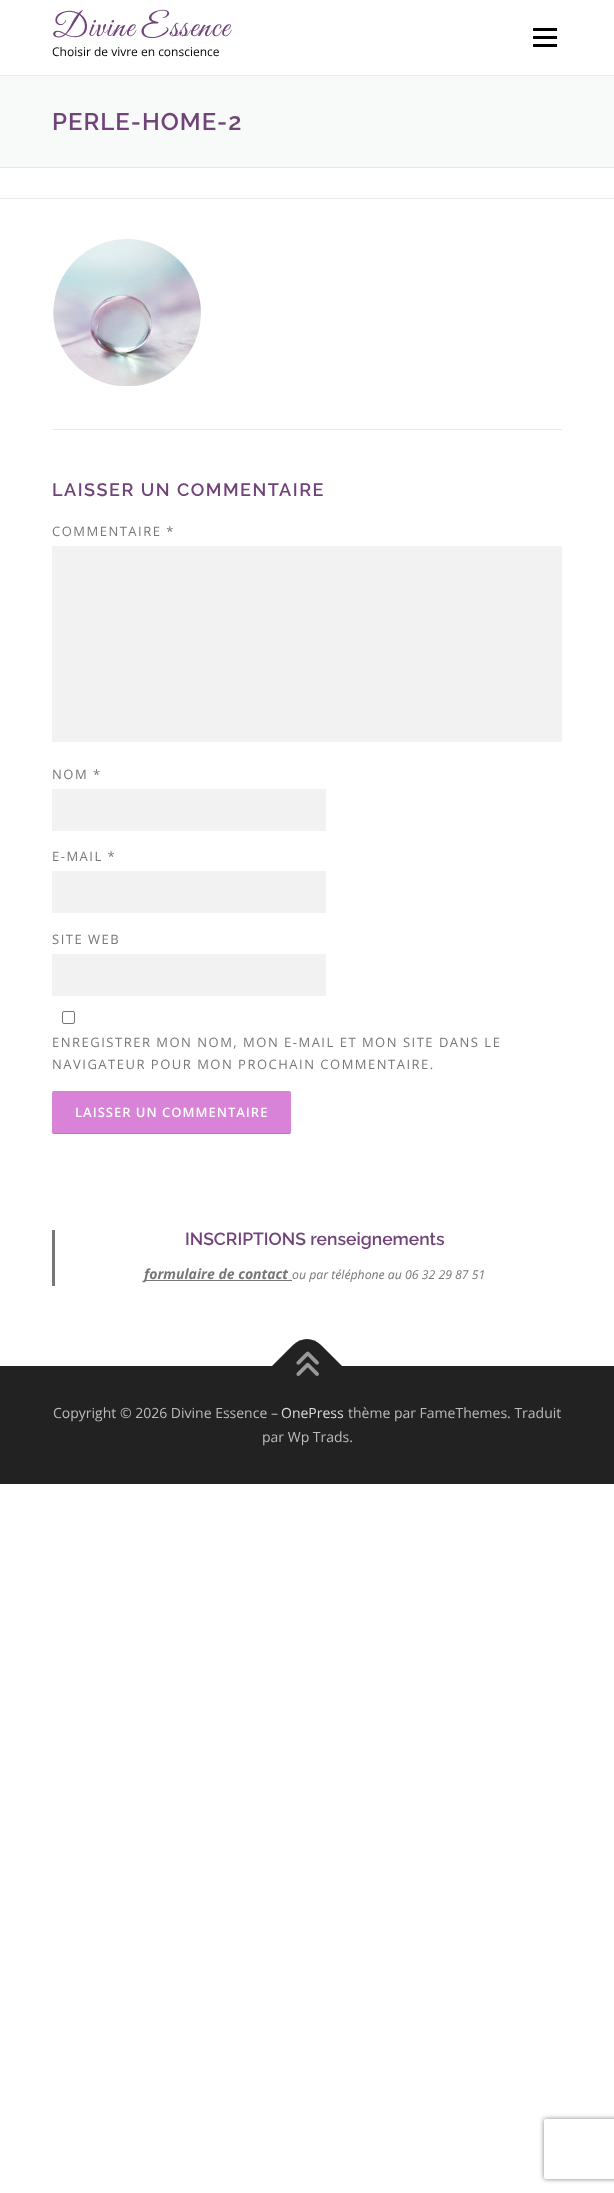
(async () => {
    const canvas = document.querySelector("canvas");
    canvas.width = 614;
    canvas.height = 2193;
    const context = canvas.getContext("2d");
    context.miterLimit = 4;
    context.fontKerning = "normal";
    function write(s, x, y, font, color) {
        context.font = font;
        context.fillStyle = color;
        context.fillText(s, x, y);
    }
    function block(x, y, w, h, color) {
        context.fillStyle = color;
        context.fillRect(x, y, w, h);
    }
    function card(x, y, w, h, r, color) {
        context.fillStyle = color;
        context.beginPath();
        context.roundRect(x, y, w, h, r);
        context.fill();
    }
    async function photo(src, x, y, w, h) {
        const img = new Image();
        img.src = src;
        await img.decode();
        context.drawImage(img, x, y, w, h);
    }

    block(0, 0, 614, 2193, "rgb(255, 255, 255)");
    context.letterSpacing = "1px";
    context.wordSpacing = "-1px";
    write("Divine Essence", 52, 36, "33px Great Vibes", "rgb(113, 68, 121)");
    context.letterSpacing = "0px";
    context.wordSpacing = "0px";
    write("Choisir de vivre en conscience", 52, 56, "12px Open Sans", "rgb(0, 0, 0)");
    block(533, 36, 24, 3, "rgb(0, 0, 0)");
    block(533, 28, 24, 3, "rgb(0, 0, 0)");
    block(533, 44, 24, 3, "rgb(0, 0, 0)");
    block(0, 76, 614, 91, "rgb(248, 249, 249)");
    block(0, 75, 614, 1, "rgb(233, 233, 233)");
    block(0, 167, 614, 1, "rgb(233, 233, 233)");
    context.letterSpacing = "1px";
    write("PERLE-HOME-2", 52, 130, "600 24px Raleway", "rgb(113, 68, 121)");
    block(0, 198, 614, 1, "rgb(233, 233, 233)");
    await photo("media/1.png", 53, 239, 148, 147);
    block(52, 429, 510, 1, "rgb(233, 233, 233)");
    context.letterSpacing = "1.5px";
    write("LAISSER UN COMMENTAIRE", 52, 496, "600 18px Raleway", "rgb(113, 68, 121)");
    write("COMMENTAIRE *", 52, 536, "13px Open Sans", "rgb(119, 119, 119)");
    block(52, 546, 510, 196, "rgb(242, 242, 242)");
    write("NOM *", 52, 779, "13px Open Sans", "rgb(119, 119, 119)");
    block(52, 789, 274, 42, "rgb(242, 242, 242)");
    write("E-MAIL *", 52, 861, "13px Open Sans", "rgb(119, 119, 119)");
    block(52, 871, 274, 42, "rgb(242, 242, 242)");
    write("SITE WEB", 52, 944, "13px Open Sans", "rgb(119, 119, 119)");
    block(52, 954, 274, 42, "rgb(242, 242, 242)");
    context.beginPath();
    context.roundRect(62.5, 1011.5, 12, 12, 1.5);
    context.strokeStyle = "rgb(118, 118, 118)";
    context.stroke();
    write("ENREGISTRER MON NOM, MON E-MAIL ET MON SITE DANS LE", 52, 1047, "13px Open Sans", "rgb(119, 119, 119)");
    write("NAVIGATEUR POUR MON PROCHAIN COMMENTAIRE.", 52, 1069, "13px Open Sans", "rgb(119, 119, 119)");
    card(52, 1091, 239, 43, 2, "rgb(216, 130, 216)");
    context.fillStyle = "rgba(0, 0, 0, 0.1)";
    context.beginPath();
    context.moveTo(52, 1131);
    context.lineTo(52, 1133);
    context.lineTo(54, 1134);
    context.lineTo(289, 1134);
    context.bezierCurveTo(291, 1134, 291, 1132, 291, 1131);
    context.bezierCurveTo(291, 1132, 290, 1133, 289, 1133);
    context.lineTo(54, 1133);
    context.bezierCurveTo(53, 1133, 52, 1132, 52, 1131);
    context.closePath();
    context.fill();
    context.letterSpacing = "1px";
    write("LAISSER UN COMMENTAIRE", 75, 1117, "600 13px Open Sans", "rgb(255, 255, 255)");
    block(52, 1230, 3, 56, "rgb(119, 119, 119)");
    context.letterSpacing = "0px";
    write("INSCRIPTIONS renseignements", 185, 1245, "600 17.5px Raleway", "rgb(113, 68, 121)");
    block(144, 1280, 148, 1, "rgb(119, 119, 119)");
    write("formulaire de contact", 144, 1279, "italic bold 14px Open Sans", "rgb(119, 119, 119)");
    write("ou par téléphone au 06 32 29 87 51", 292, 1279, "italic 12.25px Open Sans", "rgb(119, 119, 119)");
    block(0, 1366, 614, 118, "rgb(34, 34, 34)");
    context.beginPath();
    context.moveTo(272, 1366);
    context.lineTo(293, 1345);
    context.bezierCurveTo(301, 1337, 313, 1337, 321, 1345);
    context.lineTo(342, 1366);
    context.lineTo(307, 1402);
    context.closePath();
    context.fill();
    await photo("media/2.png", 296, 1351, 23, 25);
    write("Copyright © 2026 Divine Essence –", 53, 1418, "14px Open Sans", "rgb(187, 187, 187)");
    write("OnePress", 281, 1418, "14px Open Sans", "rgb(221, 221, 221)");
    write("thème par FameThemes. Traduit", 348, 1418, "14px Open Sans", "rgb(187, 187, 187)");
    write("par Wp Trads.", 262, 1442, "14px Open Sans", "rgb(187, 187, 187)");
    context.save();
    context.beginPath();
    context.moveTo(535, 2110);
    context.lineTo(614, 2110);
    context.lineTo(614, 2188);
    context.lineTo(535, 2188);
    context.closePath();
    context.moveTo(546, 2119);
    context.lineTo(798, 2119);
    context.bezierCurveTo(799, 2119, 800, 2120, 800, 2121);
    context.lineTo(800, 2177);
    context.bezierCurveTo(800, 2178, 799, 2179, 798, 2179);
    context.lineTo(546, 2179);
    context.bezierCurveTo(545, 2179, 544, 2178, 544, 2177);
    context.lineTo(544, 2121);
    context.bezierCurveTo(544, 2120, 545, 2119, 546, 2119);
    context.closePath();
    context.clip("evenodd");
    context.fillStyle = "rgb(128, 128, 128)";
    context.filter = "blur(2.5px)";
    context.beginPath();
    context.roundRect(544, 2119, 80, 60, 2);
    context.fill();
    context.filter = "none";
    context.restore();
})();
